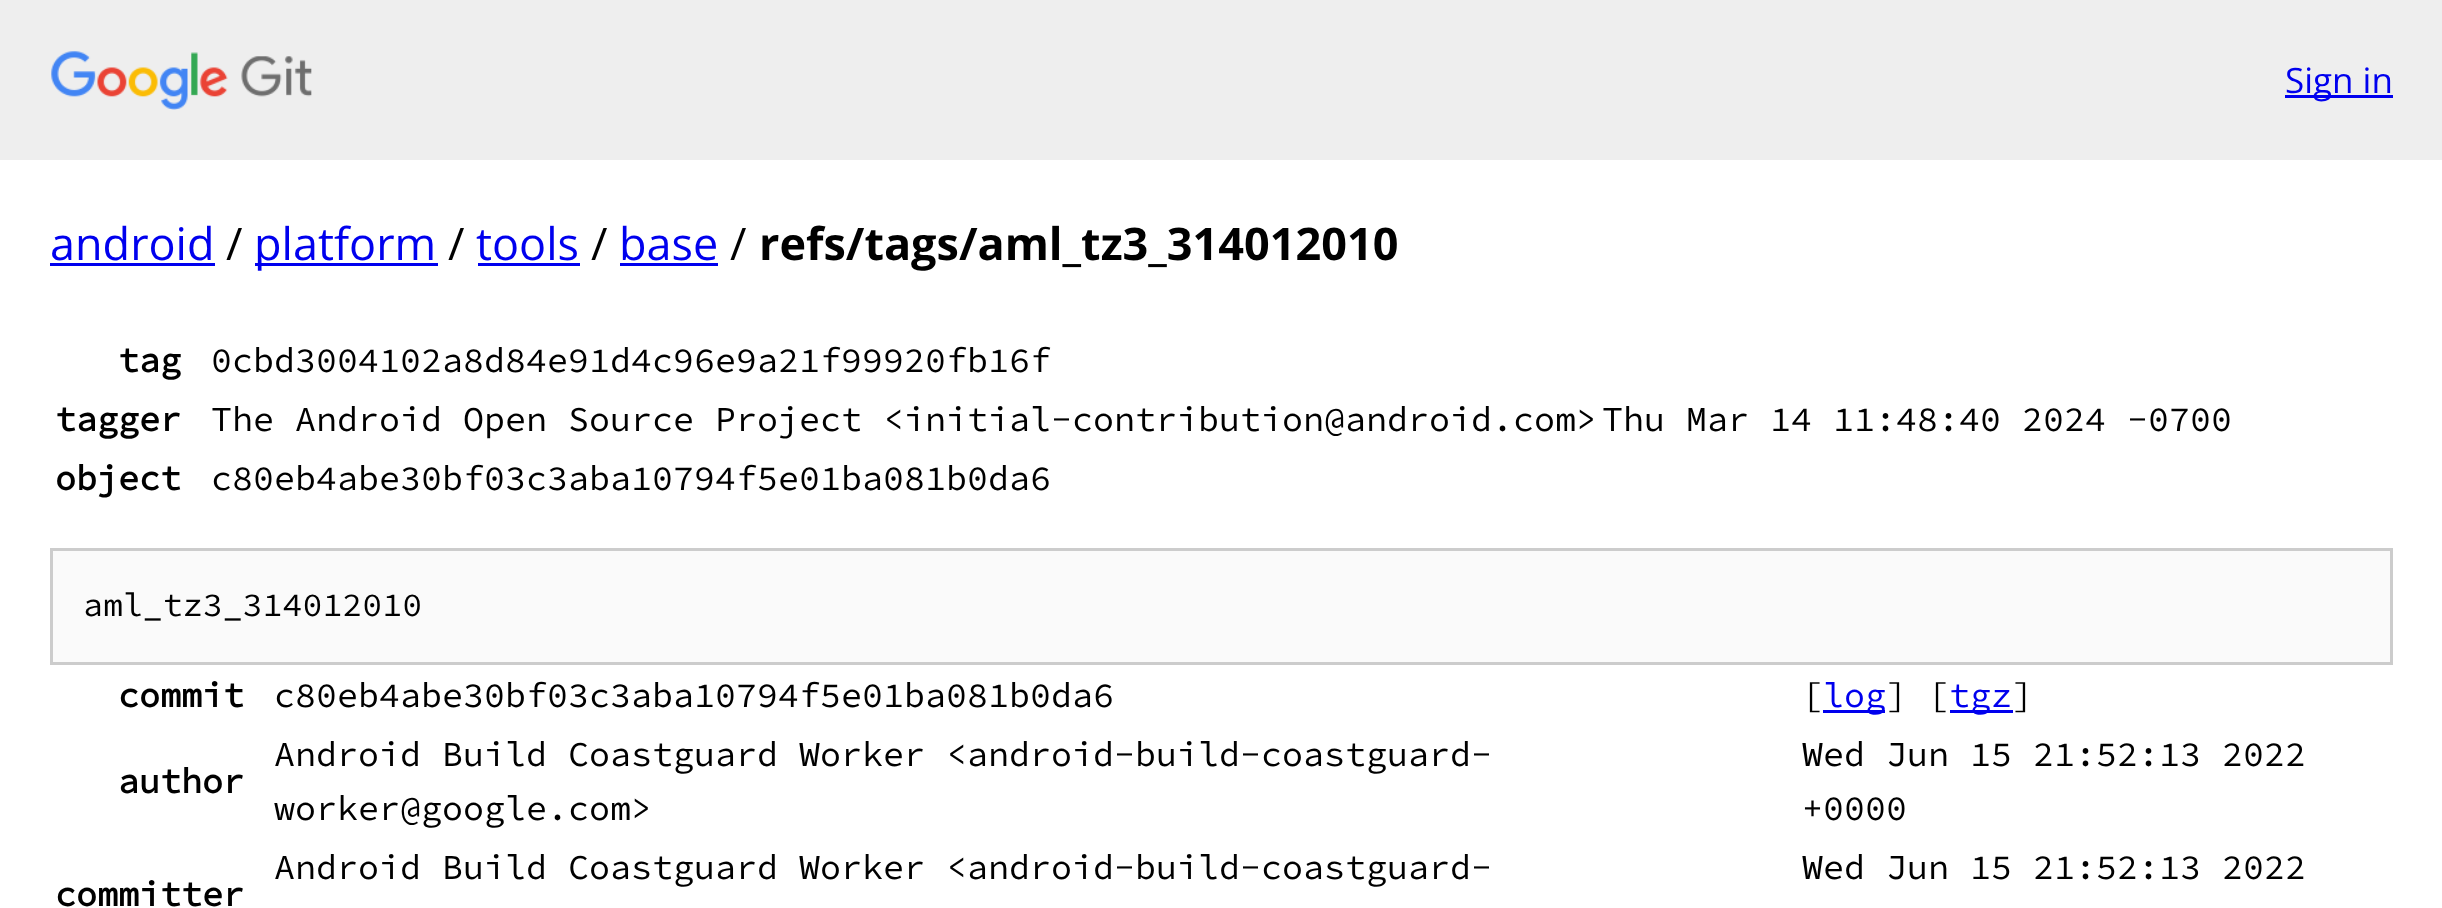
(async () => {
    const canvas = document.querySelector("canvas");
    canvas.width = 2442;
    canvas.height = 908;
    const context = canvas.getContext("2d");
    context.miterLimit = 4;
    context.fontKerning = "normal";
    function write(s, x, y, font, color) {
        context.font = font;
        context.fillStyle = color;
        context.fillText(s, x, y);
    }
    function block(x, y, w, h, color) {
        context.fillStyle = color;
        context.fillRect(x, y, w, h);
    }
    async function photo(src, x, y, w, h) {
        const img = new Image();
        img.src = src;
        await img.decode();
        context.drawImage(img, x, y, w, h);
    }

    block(0, 0, 2442, 908, "rgb(255, 255, 255)");
    block(0, 0, 2442, 160, "rgb(238, 238, 238)");
    await photo("media/1.png", 51, 51, 261, 59);
    block(2285, 95, 108, 3, "rgb(0, 0, 238)");
    write("Sign in", 2285, 93, "35px Open Sans", "rgb(0, 0, 238)");
    write("android", 50, 260, "45px Open Sans", "rgb(0, 0, 238)");
    block(50, 263, 165, 3, "rgb(0, 0, 238)");
    write("/", 226, 260, "45px Open Sans", "rgb(0, 0, 0)");
    block(255, 263, 183, 3, "rgb(0, 0, 238)");
    write("platform", 254, 260, "45px Open Sans", "rgb(0, 0, 238)");
    write("/", 448, 260, "45px Open Sans", "rgb(0, 0, 0)");
    write("tools", 476, 260, "45px Open Sans", "rgb(0, 0, 238)");
    block(478, 263, 102, 3, "rgb(0, 0, 238)");
    write("/", 591, 260, "45px Open Sans", "rgb(0, 0, 0)");
    write("base", 619, 260, "45px Open Sans", "rgb(0, 0, 238)");
    block(620, 263, 98, 3, "rgb(0, 0, 238)");
    write("/", 730, 260, "45px Open Sans", "rgb(0, 0, 0)");
    write("refs/tags/aml_tz3_314012010", 759, 260, "bold 45px Open Sans", "rgb(0, 0, 0)");
    write("tag", 118, 372, "bold 35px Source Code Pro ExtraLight", "rgb(0, 0, 0)");
    write("0cbd3004102a8d84e91d4c96e9a21f99920fb16f", 211, 372, "200 35px Source Code Pro ExtraLight", "rgb(0, 0, 0)");
    write("tagger", 55, 431, "bold 35px Source Code Pro ExtraLight", "rgb(0, 0, 0)");
    write("The Android Open Source Project <initial-contribution@android.com>", 211, 431, "200 35px Source Code Pro ExtraLight", "rgb(0, 0, 0)");
    write("Thu Mar 14 11:48:40 2024 -0700", 1602, 431, "200 35px Source Code Pro ExtraLight", "rgb(0, 0, 0)");
    write("object", 55, 490, "bold 35px Source Code Pro ExtraLight", "rgb(0, 0, 0)");
    write("c80eb4abe30bf03c3aba10794f5e01ba081b0da6", 211, 490, "200 35px Source Code Pro ExtraLight", "rgb(0, 0, 0)");
    context.fillStyle = "rgb(250, 250, 250)";
    context.beginPath();
    context.rect(51.5, 549.5, 2340, 114);
    context.fill();
    context.strokeStyle = "rgb(204, 204, 204)";
    context.lineWidth = 3;
    context.stroke();
    write("aml_tz3_314012010", 83, 616, "200 33.25px Source Code Pro ExtraLight", "rgb(0, 0, 0)");
    write("commit", 118, 707, "bold 35px Source Code Pro ExtraLight", "rgb(0, 0, 0)");
    write("c80eb4abe30bf03c3aba10794f5e01ba081b0da6", 274, 707, "200 35px Source Code Pro ExtraLight", "rgb(0, 0, 0)");
    write("[", 1802, 707, "200 35px Source Code Pro ExtraLight", "rgb(0, 0, 0)");
    block(1823, 710, 62, 3, "rgb(0, 0, 238)");
    write("log", 1823, 707, "200 35px Source Code Pro ExtraLight", "rgb(0, 0, 238)");
    write("] [", 1886, 707, "200 35px Source Code Pro ExtraLight", "rgb(0, 0, 0)");
    block(1950, 710, 63, 3, "rgb(0, 0, 238)");
    write("tgz", 1949, 707, "200 35px Source Code Pro ExtraLight", "rgb(0, 0, 238)");
    write("]", 2012, 707, "200 35px Source Code Pro ExtraLight", "rgb(0, 0, 0)");
    write("author", 118, 793, "bold 35px Source Code Pro ExtraLight", "rgb(0, 0, 0)");
    write("Android Build Coastguard Worker <android-build-coastguard-", 274, 766, "200 35px Source Code Pro ExtraLight", "rgb(0, 0, 0)");
    write("worker@google.com>", 274, 820, "200 35px Source Code Pro ExtraLight", "rgb(0, 0, 0)");
    write("Wed Jun 15 21:52:13 2022", 1802, 766, "200 35px Source Code Pro ExtraLight", "rgb(0, 0, 0)");
    write("+0000", 1802, 820, "200 35px Source Code Pro ExtraLight", "rgb(0, 0, 0)");
    write("Android Build Coastguard Worker <android-build-coastguard-", 274, 879, "200 35px Source Code Pro ExtraLight", "rgb(0, 0, 0)");
    write("Wed Jun 15 21:52:13 2022", 1802, 879, "200 35px Source Code Pro ExtraLight", "rgb(0, 0, 0)");
    write("committer", 55, 906, "bold 35px Source Code Pro ExtraLight", "rgb(0, 0, 0)");
})();
